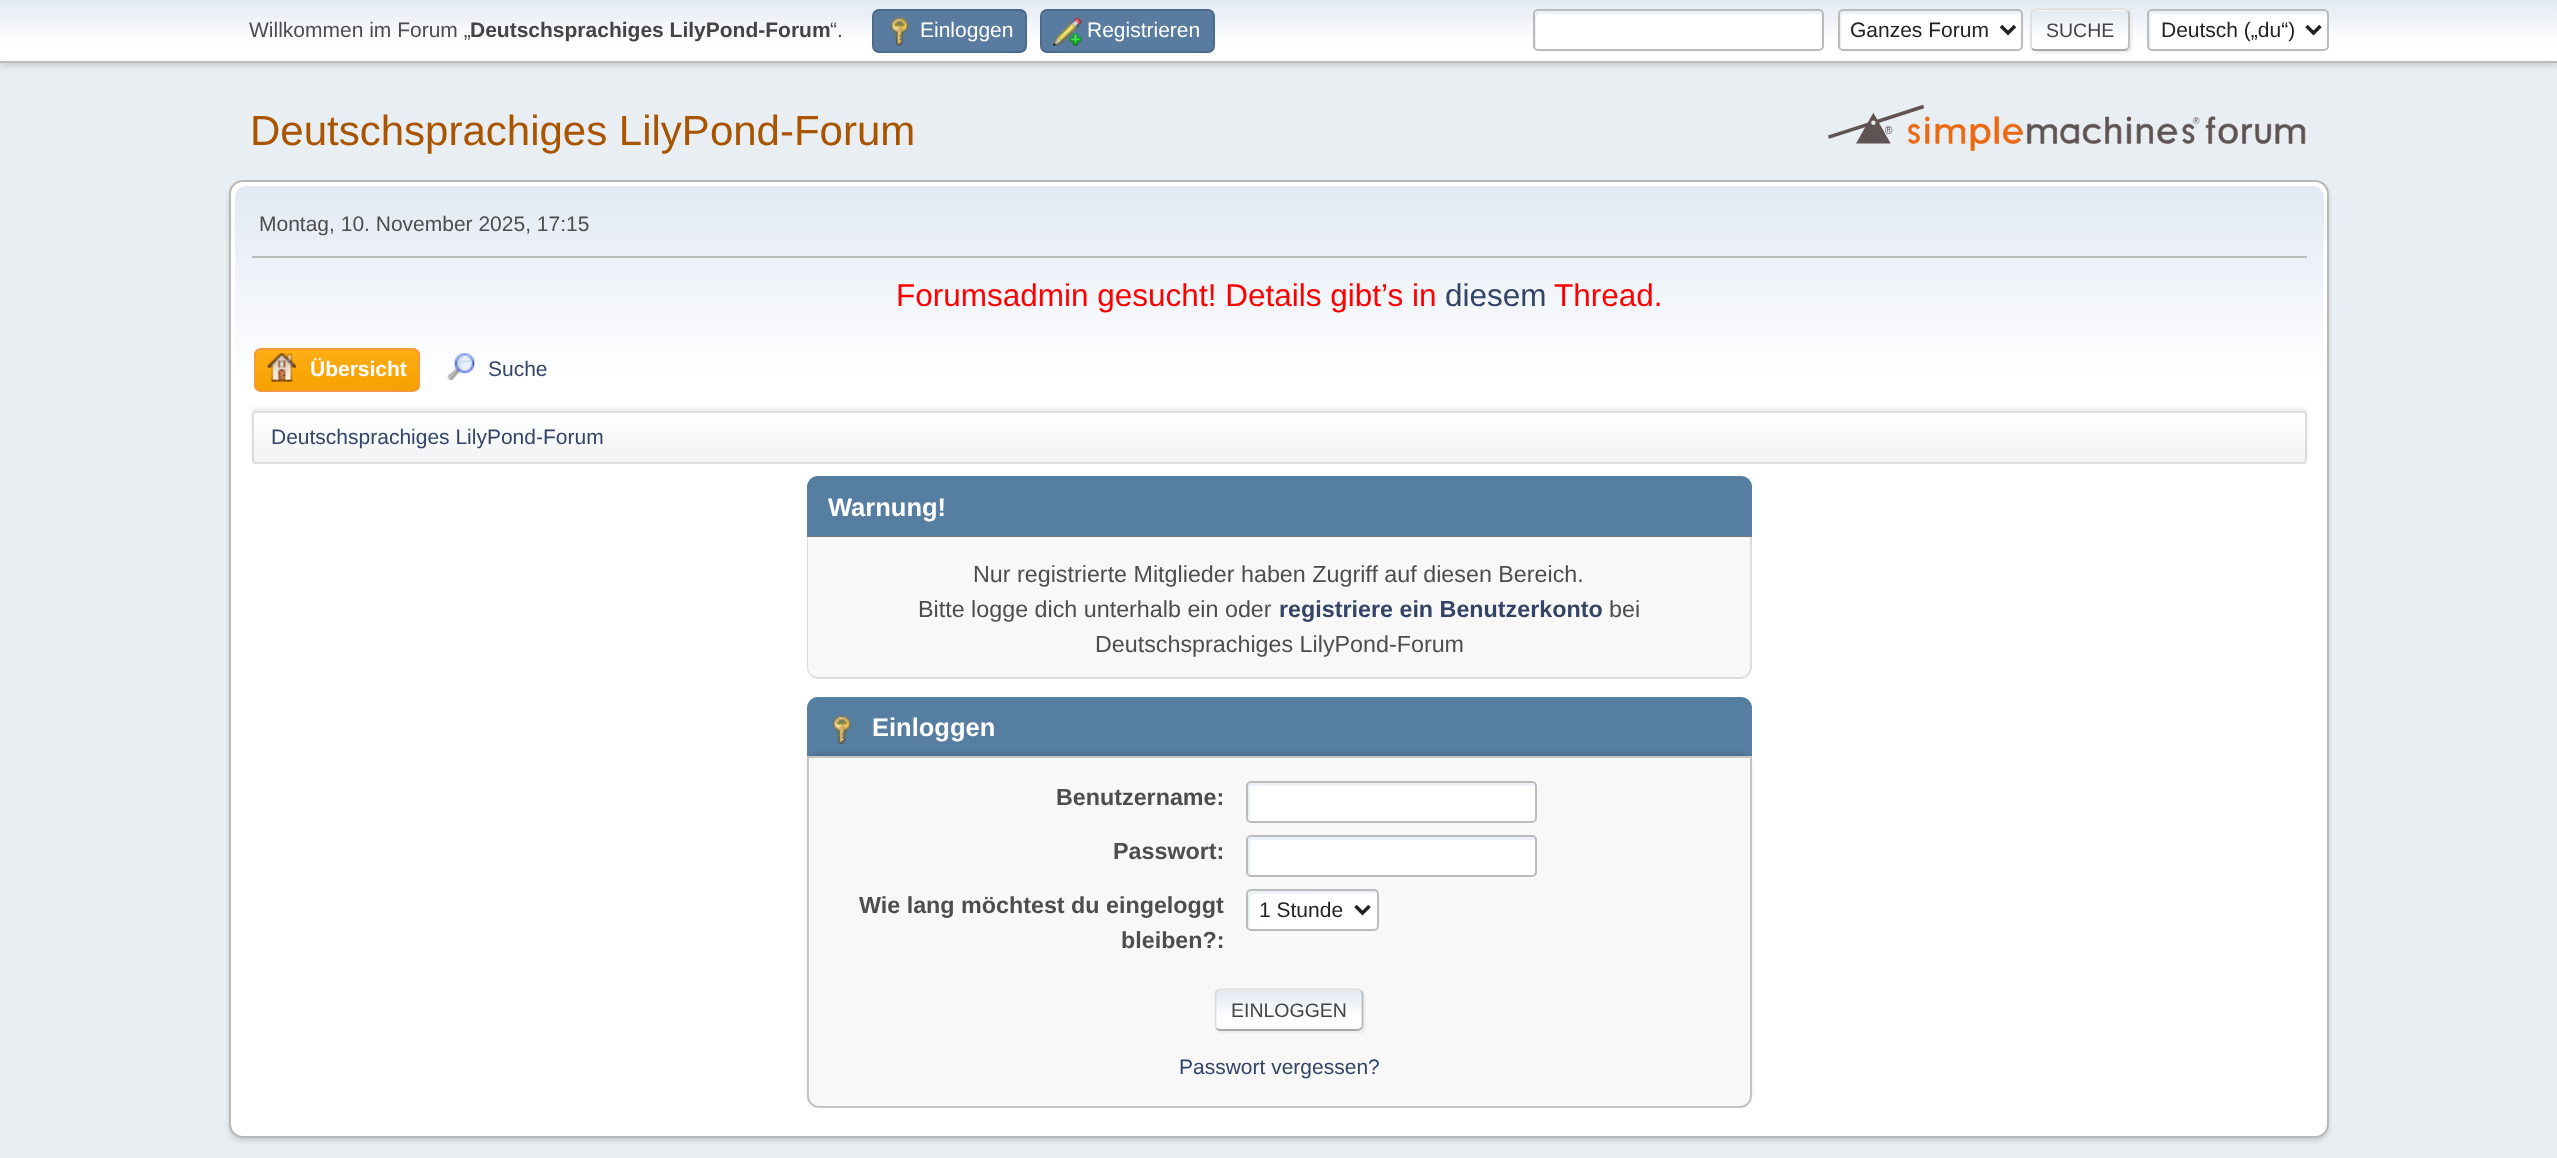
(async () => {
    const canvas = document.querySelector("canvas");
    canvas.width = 2557;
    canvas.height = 1158;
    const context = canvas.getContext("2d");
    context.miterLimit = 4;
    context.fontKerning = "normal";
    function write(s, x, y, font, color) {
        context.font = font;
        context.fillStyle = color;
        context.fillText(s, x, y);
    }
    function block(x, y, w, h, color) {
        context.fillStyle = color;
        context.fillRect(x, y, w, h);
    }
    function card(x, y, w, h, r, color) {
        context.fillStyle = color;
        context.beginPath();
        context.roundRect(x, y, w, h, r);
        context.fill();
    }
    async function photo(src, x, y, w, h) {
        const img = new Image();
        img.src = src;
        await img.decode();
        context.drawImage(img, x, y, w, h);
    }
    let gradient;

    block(0, 0, 2557, 1158, "rgb(233, 238, 242)");
    context.fillStyle = "rgba(0, 0, 0, 0.16)";
    context.filter = "blur(3.5px)";
    context.beginPath();
    context.rect(0, 2, 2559, 63);
    context.fill();
    context.filter = "none";
    gradient = context.createLinearGradient(1279, 0, 1279, 61);
    gradient.addColorStop(0, "rgb(226, 233, 243)");
    gradient.addColorStop(0.7, "rgb(255, 255, 255)");
    context.fillStyle = gradient;
    context.fillRect(0, 0, 2557, 61);
    block(0, 61, 2557, 2, "rgb(187, 187, 187)");
    write("Willkommen im Forum „", 249, 37, "21px Liberation Sans", "rgb(77, 77, 77)");
    write("Deutschsprachiges LilyPond-Forum", 470, 37, "bold 21px Liberation Sans", "rgb(68, 68, 68)");
    write("“.", 830, 37, "21px Liberation Sans", "rgb(77, 77, 77)");
    context.fillStyle = "rgb(89, 123, 159)";
    context.beginPath();
    context.roundRect(873, 10, 153, 42, 6);
    context.fill();
    context.strokeStyle = "rgb(74, 107, 140)";
    context.lineWidth = 2;
    context.stroke();
    await photo("media/1.png", 890, 17, 19, 29);
    write("Einloggen", 920, 37, "21px Liberation Sans", "rgb(255, 255, 255)");
    context.fillStyle = "rgb(89, 123, 159)";
    context.beginPath();
    context.roundRect(1041, 10, 173, 42, 6);
    context.fill();
    context.stroke();
    await photo("media/2.png", 1053, 17, 29, 29);
    write("Registrieren", 1087, 37, "21px Liberation Sans", "rgb(255, 255, 255)");
    card(1533, 9, 291, 42, 5, "rgb(255, 255, 255)");
    context.fillStyle = "rgb(236, 241, 248)";
    context.beginPath();
    context.moveTo(1540, 14);
    context.lineTo(1820, 14);
    context.lineTo(1822, 15);
    context.bezierCurveTo(1822, 13, 1820, 11, 1818, 11);
    context.lineTo(1539, 11);
    context.bezierCurveTo(1537, 11, 1535, 13, 1535, 15);
    context.lineTo(1535, 45);
    context.bezierCurveTo(1535, 46, 1535, 47, 1536, 48);
    context.lineTo(1536, 18);
    context.bezierCurveTo(1536, 16, 1538, 14, 1540, 14);
    context.closePath();
    context.fill();
    context.beginPath();
    context.roundRect(1534, 10, 289, 40, 4);
    context.strokeStyle = "rgb(187, 187, 187)";
    context.stroke();
    card(1838, 9, 185, 42, 5, "rgb(255, 255, 255)");
    context.fillStyle = "rgb(236, 241, 248)";
    context.beginPath();
    context.moveTo(1844, 14);
    context.lineTo(2020, 14);
    context.lineTo(2021, 14);
    context.bezierCurveTo(2021, 12, 2019, 11, 2017, 11);
    context.lineTo(1843, 11);
    context.bezierCurveTo(1841, 11, 1839, 13, 1839, 15);
    context.lineTo(1839, 45);
    context.bezierCurveTo(1839, 46, 1840, 48, 1841, 48);
    context.lineTo(1841, 18);
    context.bezierCurveTo(1841, 16, 1843, 14, 1844, 14);
    context.closePath();
    context.fill();
    context.beginPath();
    context.roundRect(1839, 10, 183, 40, 4);
    context.stroke();
    context.beginPath();
    context.moveTo(2001, 26);
    context.lineTo(2008, 33);
    context.lineTo(2015, 26);
    context.strokeStyle = "rgb(34, 34, 34)";
    context.lineWidth = 3.5;
    context.stroke();
    write("Ganzes Forum", 1850, 37, "21px Liberation Sans", "rgb(34, 34, 34)");
    context.fillStyle = "rgba(221, 221, 221, 0.57)";
    context.filter = "blur(1px)";
    context.beginPath();
    context.roundRect(2032, 11, 100, 42, 5);
    context.fill();
    context.filter = "none";
    context.save();
    context.beginPath();
    context.roundRect(2030, 9, 100, 42, 5);
    context.clip();
    gradient = context.createLinearGradient(2080, -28, 2080, 11);
    gradient.addColorStop(0, "rgb(226, 233, 243)");
    gradient.addColorStop(0.7, "rgb(255, 255, 255)");
    context.fillStyle = gradient;
    context.fillRect(2030, 9, 100, 2);
    gradient = context.createLinearGradient(2080, 10, 2080, 49);
    gradient.addColorStop(0, "rgb(226, 233, 243)");
    gradient.addColorStop(0.7, "rgb(255, 255, 255)");
    context.fillStyle = gradient;
    context.fillRect(2030, 11, 100, 38);
    gradient = context.createLinearGradient(2080, 49, 2080, 88);
    gradient.addColorStop(0, "rgb(226, 233, 243)");
    gradient.addColorStop(0.7, "rgb(255, 255, 255)");
    context.fillStyle = gradient;
    context.fillRect(2030, 49, 100, 2);
    context.restore();
    context.beginPath();
    context.moveTo(2127.5, 11);
    context.bezierCurveTo(2128.5, 11.5, 2129, 13, 2129, 14);
    context.lineTo(2129, 45.5);
    context.bezierCurveTo(2129, 46.5, 2128.5, 48, 2127.5, 48.5);
    context.strokeStyle = "rgb(187, 187, 187)";
    context.lineWidth = 1.8;
    context.stroke();
    context.beginPath();
    context.moveTo(2127.5, 48.5);
    context.bezierCurveTo(2127, 49.5, 2125.5, 50, 2124.5, 50);
    context.lineTo(2035, 50);
    context.bezierCurveTo(2034, 50, 2033, 49.5, 2032, 48.5);
    context.strokeStyle = "rgb(170, 170, 170)";
    context.stroke();
    context.beginPath();
    context.moveTo(2032, 48.5);
    context.bezierCurveTo(2030, 46.5, 2031, 42.5, 2031, 40);
    context.lineTo(2031, 30);
    context.bezierCurveTo(2031, 7, 2027, 9.5, 2050, 9.5);
    context.lineTo(2109.5, 9.5);
    context.bezierCurveTo(2109.5, 9.5, 2124, 7.5, 2127.5, 11);
    context.strokeStyle = "rgb(221, 221, 221)";
    context.stroke();
    write("SUCHE", 2046, 37, "19.5px Liberation Sans", "rgb(68, 68, 68)");
    card(2147, 9, 182, 42, 5, "rgb(255, 255, 255)");
    context.fillStyle = "rgb(236, 241, 248)";
    context.beginPath();
    context.moveTo(2154, 14);
    context.lineTo(2326, 14);
    context.bezierCurveTo(2327, 14, 2328, 14, 2328, 15);
    context.bezierCurveTo(2328, 13, 2326, 11, 2324, 11);
    context.lineTo(2153, 11);
    context.bezierCurveTo(2151, 11, 2149, 13, 2149, 15);
    context.lineTo(2149, 45);
    context.bezierCurveTo(2149, 46, 2150, 48, 2151, 48);
    context.lineTo(2151, 18);
    context.bezierCurveTo(2151, 16, 2152, 14, 2154, 14);
    context.closePath();
    context.fill();
    context.beginPath();
    context.roundRect(2148, 10, 180, 40, 4);
    context.strokeStyle = "rgb(187, 187, 187)";
    context.lineWidth = 2;
    context.stroke();
    context.beginPath();
    context.moveTo(2306.5, 26);
    context.lineTo(2313.5, 33);
    context.lineTo(2320.5, 26);
    context.strokeStyle = "rgb(34, 34, 34)";
    context.lineWidth = 3.5;
    context.stroke();
    write("Deutsch („du“)", 2161, 37, "21px Liberation Sans", "rgb(34, 34, 34)");
    write("Deutschsprachiges LilyPond-Forum", 250, 145, "42px Liberation Sans", "rgb(168, 84, 0)");
    await photo("media/3.png", 1828, 104, 478, 48);
    context.fillStyle = "rgba(0, 0, 0, 0.14)";
    context.filter = "blur(2.5px)";
    context.beginPath();
    context.roundRect(229, 184, 2100, 957, 14);
    context.fill();
    context.filter = "none";
    context.fillStyle = "rgb(255, 255, 255)";
    context.beginPath();
    context.roundRect(230, 181, 2098, 956, 13);
    context.fill();
    context.strokeStyle = "rgb(184, 184, 184)";
    context.lineWidth = 2;
    context.stroke();
    gradient = context.createLinearGradient(1279, 185, 1279, 467);
    gradient.addColorStop(0, "rgb(226, 233, 243)");
    gradient.addColorStop(0.7, "rgb(255, 255, 255)");
    context.fillStyle = gradient;
    context.beginPath();
    context.roundRect(235, 186, 2089, 281, [11, 11, 0, 0]);
    context.fill();
    block(252, 256, 2055, 2, "rgb(187, 187, 187)");
    write("Montag, 10. November 2025, 17:15", 259, 231, "21px Liberation Sans", "rgb(77, 77, 77)");
    write("Forumsadmin gesucht! Details gibt’s in", 896, 306, "31.5px Liberation Sans", "rgb(255, 0, 0)");
    write("diesem", 1445, 306, "31.5px Liberation Sans", "rgb(51, 68, 102)");
    write("Thread.", 1554, 306, "31.5px Liberation Sans", "rgb(255, 0, 0)");
    context.save();
    context.beginPath();
    context.roundRect(254, 348, 166, 44, 7);
    context.clip();
    gradient = context.createLinearGradient(337, 350, 337, 390);
    gradient.addColorStop(0, "rgb(255, 174, 20)");
    gradient.addColorStop(1, "rgb(245, 161, 0)");
    context.fillStyle = gradient;
    context.fillRect(254, 350, 166, 40);
    context.restore();
    context.beginPath();
    context.roundRect(255, 349, 164, 42, 6);
    context.strokeStyle = "rgb(244, 154, 58)";
    context.stroke();
    await photo("media/4.png", 267, 353, 29, 29);
    write("Übersicht", 310, 376, "bold 21px Liberation Sans", "rgb(255, 255, 255)");
    await photo("media/5.png", 447, 353, 28, 28);
    write("Suche", 488, 376, "21px Liberation Sans", "rgb(51, 68, 102)");
    context.fillStyle = "rgba(0, 0, 0, 0.08)";
    context.filter = "blur(2px)";
    context.beginPath();
    context.roundRect(252, 408, 2055, 52, 4);
    context.fill();
    context.filter = "none";
    context.save();
    context.beginPath();
    context.roundRect(252, 411, 2055, 53, 4);
    context.clip();
    gradient = context.createLinearGradient(1279, 413, 1279, 462);
    gradient.addColorStop(0, "rgb(255, 255, 255)");
    gradient.addColorStop(0.95, "rgb(241, 243, 245)");
    context.fillStyle = gradient;
    context.fillRect(252, 413, 2055, 49);
    context.restore();
    context.beginPath();
    context.roundRect(253, 412, 2053, 51, 3);
    context.strokeStyle = "rgb(221, 221, 221)";
    context.stroke();
    write("Deutschsprachiges LilyPond-Forum", 271, 444, "21px Liberation Sans", "rgb(51, 68, 102)");
    context.fillStyle = "rgb(85, 126, 160)";
    context.beginPath();
    context.roundRect(807, 476, 945, 61, [11, 11, 0, 0]);
    context.fill();
    block(807, 536, 945, 1, "rgb(119, 119, 119)");
    write("Warnung!", 828, 516, "bold 25.5px Liberation Sans", "rgb(255, 255, 255)");
    context.fillStyle = "rgb(248, 248, 248)";
    context.beginPath();
    context.roundRect(807, 537, 945, 142, [0, 0, 12, 12]);
    context.fill();
    context.fillStyle = "rgb(221, 221, 221)";
    context.beginPath();
    context.moveTo(807, 537);
    context.lineTo(1752, 537);
    context.lineTo(1752, 667);
    context.bezierCurveTo(1752, 674, 1746, 679, 1740, 679);
    context.lineTo(819, 679);
    context.bezierCurveTo(812, 679, 807, 674, 807, 667);
    context.closePath();
    context.moveTo(808, 537);
    context.lineTo(1750, 537);
    context.lineTo(1750, 667);
    context.bezierCurveTo(1750, 673, 1745, 677, 1740, 677);
    context.lineTo(819, 677);
    context.bezierCurveTo(813, 677, 808, 673, 808, 667);
    context.closePath();
    context.fill("evenodd");
    write("Nur registrierte Mitglieder haben Zugriff auf diesen Bereich.", 973, 582, "23.3px Liberation Sans", "rgb(77, 77, 77)");
    write("Bitte logge dich unterhalb ein oder", 918, 617, "23.3px Liberation Sans", "rgb(77, 77, 77)");
    write("registriere ein Benutzerkonto", 1279, 617, "bold 23.3px Liberation Sans", "rgb(51, 68, 102)");
    write("bei", 1609, 617, "23.3px Liberation Sans", "rgb(77, 77, 77)");
    write("Deutschsprachiges LilyPond-Forum", 1095, 652, "23.3px Liberation Sans", "rgb(77, 77, 77)");
    context.fillStyle = "rgb(85, 126, 160)";
    context.beginPath();
    context.roundRect(807, 697, 945, 61, [11, 11, 0, 0]);
    context.fill();
    await photo("media/6.png", 832, 715, 19, 29);
    write("Einloggen", 872, 736, "bold 25.5px Liberation Sans", "rgb(255, 255, 255)");
    context.fillStyle = "rgba(0, 0, 0, 0.1)";
    context.filter = "blur(2px)";
    context.beginPath();
    context.roundRect(807, 753, 945, 351, 12);
    context.fill();
    context.filter = "none";
    context.fillStyle = "rgb(248, 248, 248)";
    context.beginPath();
    context.roundRect(808, 757, 943, 350, [0, 0, 11, 11]);
    context.fill();
    context.strokeStyle = "rgb(197, 197, 197)";
    context.stroke();
    write("Benutzername:", 1056, 805, "bold 23.3px Liberation Sans", "rgb(77, 77, 77)");
    card(1246, 781, 291, 42, 5, "rgb(255, 255, 255)");
    context.fillStyle = "rgb(236, 241, 248)";
    context.beginPath();
    context.moveTo(1253, 786);
    context.lineTo(1533, 786);
    context.lineTo(1535, 787);
    context.lineTo(1535, 786);
    context.bezierCurveTo(1535, 784, 1533, 782, 1531, 782);
    context.lineTo(1252, 782);
    context.bezierCurveTo(1250, 782, 1248, 784, 1248, 786);
    context.lineTo(1248, 817);
    context.bezierCurveTo(1248, 818, 1249, 820, 1250, 820);
    context.lineTo(1250, 789);
    context.bezierCurveTo(1250, 787, 1251, 786, 1253, 786);
    context.closePath();
    context.fill();
    context.beginPath();
    context.roundRect(1247, 782, 289, 40, 4);
    context.strokeStyle = "rgb(187, 187, 187)";
    context.stroke();
    write("Passwort:", 1113, 859, "bold 23.3px Liberation Sans", "rgb(77, 77, 77)");
    card(1246, 835, 291, 42, 5, "rgb(255, 255, 255)");
    context.fillStyle = "rgb(236, 241, 248)";
    context.beginPath();
    context.moveTo(1253, 840);
    context.lineTo(1533, 840);
    context.lineTo(1535, 841);
    context.bezierCurveTo(1535, 839, 1533, 837, 1531, 837);
    context.lineTo(1252, 837);
    context.bezierCurveTo(1250, 837, 1248, 839, 1248, 841);
    context.lineTo(1248, 871);
    context.bezierCurveTo(1248, 872, 1249, 874, 1250, 874);
    context.lineTo(1250, 844);
    context.bezierCurveTo(1250, 842, 1251, 840, 1253, 840);
    context.closePath();
    context.fill();
    context.beginPath();
    context.roundRect(1247, 836, 289, 40, 4);
    context.stroke();
    write("Wie lang möchtest du eingeloggt", 859, 913, "bold 23.3px Liberation Sans", "rgb(77, 77, 77)");
    write("bleiben?:", 1121, 948, "bold 23.3px Liberation Sans", "rgb(77, 77, 77)");
    card(1246, 889, 133, 42, 5, "rgb(255, 255, 255)");
    context.fillStyle = "rgb(236, 241, 248)";
    context.beginPath();
    context.moveTo(1253, 894);
    context.bezierCurveTo(1265, 894, 1375, 893, 1377, 894);
    context.bezierCurveTo(1377, 892, 1375, 891, 1373, 891);
    context.lineTo(1252, 891);
    context.bezierCurveTo(1250, 891, 1248, 893, 1248, 895);
    context.lineTo(1248, 925);
    context.bezierCurveTo(1248, 926, 1249, 928, 1250, 928);
    context.lineTo(1250, 898);
    context.bezierCurveTo(1250, 896, 1251, 894, 1253, 894);
    context.closePath();
    context.fill();
    context.beginPath();
    context.roundRect(1247, 890, 131, 40, 4);
    context.stroke();
    context.beginPath();
    context.moveTo(1355.5, 906);
    context.lineTo(1362.5, 913);
    context.lineTo(1369.5, 906);
    context.strokeStyle = "rgb(34, 34, 34)";
    context.lineWidth = 3.5;
    context.stroke();
    write("1 Stunde", 1259, 917, "21px Liberation Sans", "rgb(34, 34, 34)");
    context.fillStyle = "rgba(221, 221, 221, 0.57)";
    context.filter = "blur(1px)";
    context.beginPath();
    context.roundRect(1216, 991, 149, 42, 5);
    context.fill();
    context.filter = "none";
    context.save();
    context.beginPath();
    context.roundRect(1215, 989, 148, 42, 5);
    context.clip();
    gradient = context.createLinearGradient(1289, 952, 1289, 991);
    gradient.addColorStop(0, "rgb(226, 233, 243)");
    gradient.addColorStop(0.7, "rgb(255, 255, 255)");
    context.fillStyle = gradient;
    context.fillRect(1215, 989, 148, 2);
    gradient = context.createLinearGradient(1289, 991, 1289, 1029);
    gradient.addColorStop(0, "rgb(226, 233, 243)");
    gradient.addColorStop(0.7, "rgb(255, 255, 255)");
    context.fillStyle = gradient;
    context.fillRect(1215, 991, 148, 38);
    gradient = context.createLinearGradient(1289, 1029, 1289, 1068);
    gradient.addColorStop(0, "rgb(226, 233, 243)");
    gradient.addColorStop(0.7, "rgb(255, 255, 255)");
    context.fillStyle = gradient;
    context.fillRect(1215, 1029, 148, 2);
    context.restore();
    context.beginPath();
    context.moveTo(1361, 991);
    context.bezierCurveTo(1362, 991.5, 1362.5, 993, 1362.5, 994);
    context.lineTo(1362.5, 1025.5);
    context.bezierCurveTo(1362.5, 1026.5, 1362, 1028, 1361, 1028.5);
    context.strokeStyle = "rgb(187, 187, 187)";
    context.lineWidth = 1.8;
    context.stroke();
    context.beginPath();
    context.moveTo(1361, 1028.5);
    context.lineTo(1358, 1030);
    context.lineTo(1219.5, 1030);
    context.lineTo(1216.5, 1028.5);
    context.strokeStyle = "rgb(170, 170, 170)";
    context.stroke();
    context.beginPath();
    context.moveTo(1216.5, 1028.5);
    context.bezierCurveTo(1216, 1028, 1215.5, 1026.5, 1215.5, 1025.5);
    context.lineTo(1215.5, 994);
    context.bezierCurveTo(1215.5, 993, 1216, 991.5, 1216.5, 991);
    context.bezierCurveTo(1217.5, 990, 1218.5, 989.5, 1220, 989.5);
    context.lineTo(1358, 989.5);
    context.bezierCurveTo(1359, 989.5, 1360.5, 990, 1361, 991);
    context.strokeStyle = "rgb(221, 221, 221)";
    context.stroke();
    write("EINLOGGEN", 1231, 1017, "19.5px Liberation Sans", "rgb(68, 68, 68)");
    write("Passwort vergessen?", 1179, 1074, "21px Liberation Sans", "rgb(51, 68, 102)");
})();
